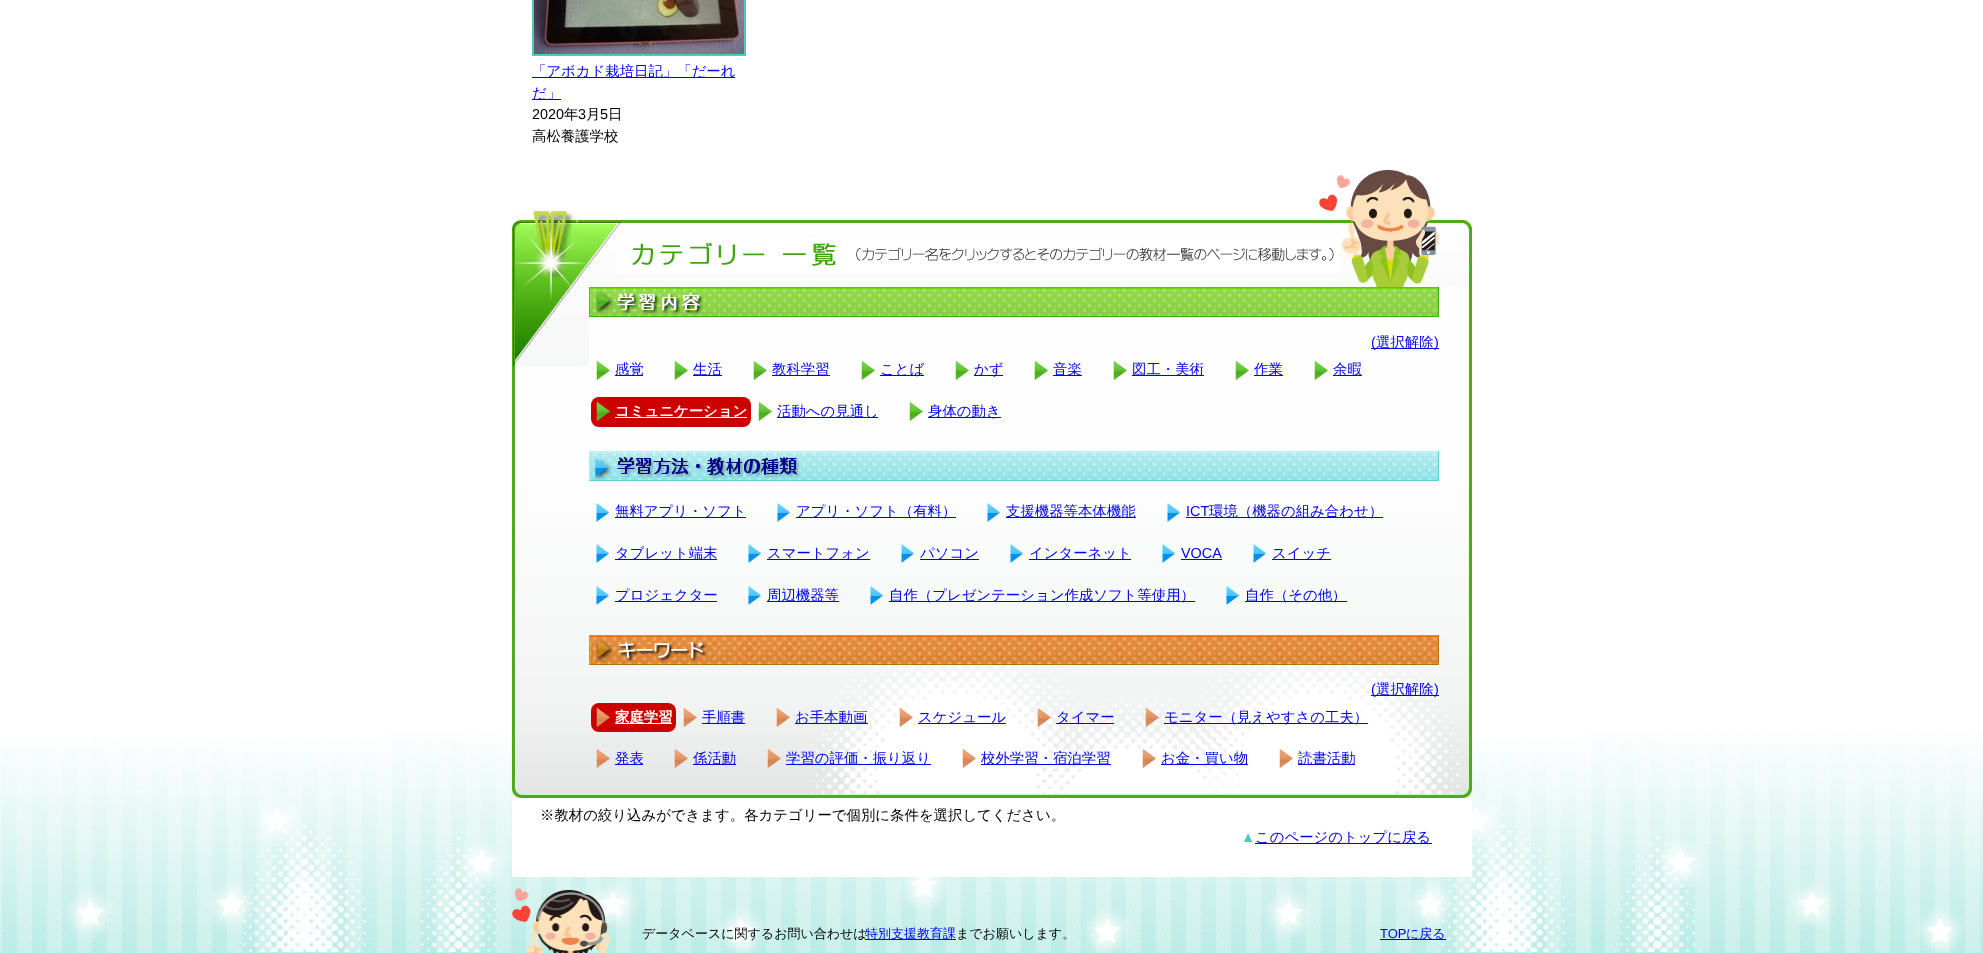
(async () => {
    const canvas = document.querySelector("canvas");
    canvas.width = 1983;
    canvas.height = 953;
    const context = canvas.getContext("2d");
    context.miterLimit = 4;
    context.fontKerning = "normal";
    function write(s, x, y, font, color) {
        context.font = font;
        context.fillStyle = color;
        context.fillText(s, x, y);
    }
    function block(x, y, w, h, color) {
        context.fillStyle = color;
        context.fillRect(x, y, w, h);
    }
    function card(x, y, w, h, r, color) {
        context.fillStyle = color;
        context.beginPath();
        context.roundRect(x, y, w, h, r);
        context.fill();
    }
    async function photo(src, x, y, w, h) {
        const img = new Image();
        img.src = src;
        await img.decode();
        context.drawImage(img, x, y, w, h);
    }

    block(0, 0, 1983, 953, "rgb(255, 255, 255)");
    await photo("media/1.png", 0, 733, 1983, 220);
    await photo("media/2.png", 512, 888, 98, 65);
    block(512, 733, 960, 144, "rgb(255, 255, 255)");
    context.strokeStyle = "rgb(79, 201, 186)";
    context.lineWidth = 2;
    context.strokeRect(533, -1, 212, 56);
    await photo("media/3.png", 534, 0, 210, 54);
    block(532, 77, 203, 1, "rgb(0, 0, 238)");
    write("「アボカド栽培日記」「だーれ", 532, 76, "500 14.4px WenQuanYi Zen Hei", "rgb(0, 0, 238)");
    block(532, 99, 29, 1, "rgb(0, 0, 238)");
    write("だ」", 532, 98, "500 14.4px WenQuanYi Zen Hei", "rgb(0, 0, 238)");
    write("2020", 532, 119, "14.4px Liberation Sans", "rgb(0, 0, 0)");
    write("年", 564, 119, "500 14.4px WenQuanYi Zen Hei", "rgb(0, 0, 0)");
    write("3", 578, 119, "14.4px Liberation Sans", "rgb(0, 0, 0)");
    write("月", 586, 119, "500 14.4px WenQuanYi Zen Hei", "rgb(0, 0, 0)");
    write("5", 600, 119, "14.4px Liberation Sans", "rgb(0, 0, 0)");
    write("日", 608, 119, "500 14.4px WenQuanYi Zen Hei", "rgb(0, 0, 0)");
    write("高松養護学校", 532, 141, "500 14.4px WenQuanYi Zen Hei", "rgb(0, 0, 0)");
    await photo("media/4.png", 512, 287, 960, 511);
    await photo("media/5.png", 512, 167, 960, 120);
    await photo("media/6.png", 512, 287, 77, 79);
    await photo("media/7.png", 589, 287, 850, 30);
    block(1371, 348, 68, 1, "rgb(0, 0, 238)");
    write("(", 1371, 347, "14.4px Liberation Sans", "rgb(0, 0, 238)");
    write("選択解除", 1376, 347, "500 14.4px WenQuanYi Zen Hei", "rgb(0, 0, 238)");
    write(")", 1434, 347, "14.4px Liberation Sans", "rgb(0, 0, 238)");
    await photo("media/8.png", 596, 361, 14, 19);
    block(615, 375, 28, 1, "rgb(0, 0, 238)");
    write("感覚", 615, 374, "500 14.4px WenQuanYi Zen Hei", "rgb(0, 0, 238)");
    await photo("media/8.png", 674, 361, 14, 19);
    block(693, 375, 29, 1, "rgb(0, 0, 238)");
    write("生活", 693, 374, "500 14.4px WenQuanYi Zen Hei", "rgb(0, 0, 238)");
    await photo("media/8.png", 753, 361, 14, 19);
    block(772, 375, 58, 1, "rgb(0, 0, 238)");
    write("教科学習", 772, 374, "500 14.4px WenQuanYi Zen Hei", "rgb(0, 0, 238)");
    await photo("media/8.png", 861, 361, 14, 19);
    block(880, 375, 44, 1, "rgb(0, 0, 238)");
    write("ことば", 880, 374, "500 14.4px WenQuanYi Zen Hei", "rgb(0, 0, 238)");
    await photo("media/8.png", 955, 361, 14, 19);
    block(974, 375, 29, 1, "rgb(0, 0, 238)");
    write("かず", 974, 374, "500 14.4px WenQuanYi Zen Hei", "rgb(0, 0, 238)");
    await photo("media/8.png", 1034, 361, 14, 19);
    block(1053, 375, 29, 1, "rgb(0, 0, 238)");
    write("音楽", 1053, 374, "500 14.4px WenQuanYi Zen Hei", "rgb(0, 0, 238)");
    await photo("media/8.png", 1113, 361, 14, 19);
    block(1132, 375, 72, 1, "rgb(0, 0, 238)");
    write("図工・美術", 1132, 374, "500 14.4px WenQuanYi Zen Hei", "rgb(0, 0, 238)");
    await photo("media/8.png", 1235, 361, 14, 19);
    block(1254, 375, 29, 1, "rgb(0, 0, 238)");
    write("作業", 1254, 374, "500 14.4px WenQuanYi Zen Hei", "rgb(0, 0, 238)");
    await photo("media/8.png", 1314, 361, 14, 19);
    block(1333, 375, 29, 1, "rgb(0, 0, 238)");
    write("余暇", 1333, 374, "500 14.4px WenQuanYi Zen Hei", "rgb(0, 0, 238)");
    card(591, 397, 160, 30, 8, "rgb(204, 0, 0)");
    await photo("media/9.png", 596, 402, 14, 19);
    block(615, 417, 132, 1, "rgb(255, 255, 255)");
    write("コミュニケーション", 615, 416, "bold 14.4px WenQuanYi Zen Hei", "rgb(255, 255, 255)");
    await photo("media/8.png", 758, 402, 14, 19);
    block(777, 417, 101, 1, "rgb(0, 0, 238)");
    write("活動への見通し", 777, 416, "500 14.4px WenQuanYi Zen Hei", "rgb(0, 0, 238)");
    await photo("media/8.png", 909, 402, 14, 19);
    block(928, 417, 73, 1, "rgb(0, 0, 238)");
    write("身体の動き", 928, 416, "500 14.4px WenQuanYi Zen Hei", "rgb(0, 0, 238)");
    await photo("media/10.png", 589, 451, 850, 30);
    await photo("media/11.png", 596, 503, 13, 19);
    block(615, 517, 131, 1, "rgb(0, 0, 238)");
    write("無料アプリ・ソフト", 615, 516, "500 14.4px WenQuanYi Zen Hei", "rgb(0, 0, 238)");
    await photo("media/11.png", 777, 503, 13, 19);
    block(796, 517, 160, 1, "rgb(0, 0, 238)");
    write("アプリ・ソフト（有料）", 796, 516, "500 14.4px WenQuanYi Zen Hei", "rgb(0, 0, 238)");
    await photo("media/11.png", 987, 503, 13, 19);
    block(1006, 517, 130, 1, "rgb(0, 0, 238)");
    write("支援機器等本体機能", 1006, 516, "500 14.4px WenQuanYi Zen Hei", "rgb(0, 0, 238)");
    await photo("media/11.png", 1167, 503, 13, 19);
    write("ICT", 1186, 516, "14.4px Liberation Sans", "rgb(0, 0, 238)");
    block(1186, 517, 197, 1, "rgb(0, 0, 238)");
    write("環境（機器の組み合わせ）", 1209, 516, "500 14.4px WenQuanYi Zen Hei", "rgb(0, 0, 238)");
    await photo("media/12.png", 596, 544, 13, 19);
    block(615, 559, 102, 1, "rgb(0, 0, 238)");
    write("タブレット端末", 615, 558, "500 14.4px WenQuanYi Zen Hei", "rgb(0, 0, 238)");
    await photo("media/12.png", 748, 544, 13, 19);
    block(767, 559, 103, 1, "rgb(0, 0, 238)");
    write("スマートフォン", 767, 558, "500 14.4px WenQuanYi Zen Hei", "rgb(0, 0, 238)");
    await photo("media/12.png", 901, 544, 13, 19);
    block(920, 559, 59, 1, "rgb(0, 0, 238)");
    write("パソコン", 920, 558, "500 14.4px WenQuanYi Zen Hei", "rgb(0, 0, 238)");
    await photo("media/12.png", 1010, 544, 13, 19);
    block(1029, 559, 102, 1, "rgb(0, 0, 238)");
    write("インターネット", 1029, 558, "500 14.4px WenQuanYi Zen Hei", "rgb(0, 0, 238)");
    await photo("media/12.png", 1162, 544, 13, 19);
    write("VOCA", 1181, 558, "14.4px Liberation Sans", "rgb(0, 0, 238)");
    block(1181, 559, 41, 1, "rgb(0, 0, 238)");
    await photo("media/12.png", 1253, 544, 13, 19);
    block(1272, 559, 59, 1, "rgb(0, 0, 238)");
    write("スイッチ", 1272, 558, "500 14.4px WenQuanYi Zen Hei", "rgb(0, 0, 238)");
    await photo("media/13.png", 596, 586, 13, 19);
    block(615, 601, 102, 1, "rgb(0, 0, 238)");
    write("プロジェクター", 615, 600, "500 14.4px WenQuanYi Zen Hei", "rgb(0, 0, 238)");
    await photo("media/13.png", 748, 586, 13, 19);
    block(767, 601, 72, 1, "rgb(0, 0, 238)");
    write("周辺機器等", 767, 600, "500 14.4px WenQuanYi Zen Hei", "rgb(0, 0, 238)");
    await photo("media/13.png", 870, 586, 13, 19);
    block(889, 601, 306, 1, "rgb(0, 0, 238)");
    write("自作（プレゼンテーション作成ソフト等使用）", 889, 600, "500 14.4px WenQuanYi Zen Hei", "rgb(0, 0, 238)");
    await photo("media/13.png", 1226, 586, 13, 19);
    block(1245, 601, 102, 1, "rgb(0, 0, 238)");
    write("自作（その他）", 1245, 600, "500 14.4px WenQuanYi Zen Hei", "rgb(0, 0, 238)");
    await photo("media/14.png", 589, 635, 850, 30);
    block(1371, 695, 68, 1, "rgb(0, 0, 238)");
    write("(", 1371, 694, "14.4px Liberation Sans", "rgb(0, 0, 238)");
    write("選択解除", 1376, 694, "500 14.4px WenQuanYi Zen Hei", "rgb(0, 0, 238)");
    write(")", 1434, 694, "14.4px Liberation Sans", "rgb(0, 0, 238)");
    card(591, 703, 85, 29, 8, "rgb(204, 0, 0)");
    await photo("media/15.png", 596, 708, 14, 19);
    block(615, 723, 57, 1, "rgb(255, 255, 255)");
    write("家庭学習", 615, 722, "bold 14.4px WenQuanYi Zen Hei", "rgb(255, 255, 255)");
    await photo("media/16.png", 683, 708, 14, 19);
    block(702, 723, 43, 1, "rgb(0, 0, 238)");
    write("手順書", 702, 722, "500 14.4px WenQuanYi Zen Hei", "rgb(0, 0, 238)");
    await photo("media/16.png", 776, 708, 14, 19);
    block(795, 723, 73, 1, "rgb(0, 0, 238)");
    write("お手本動画", 795, 722, "500 14.4px WenQuanYi Zen Hei", "rgb(0, 0, 238)");
    await photo("media/17.png", 899, 708, 14, 19);
    block(918, 723, 88, 1, "rgb(0, 0, 238)");
    write("スケジュール", 918, 722, "500 14.4px WenQuanYi Zen Hei", "rgb(0, 0, 238)");
    await photo("media/18.png", 1037, 708, 14, 19);
    block(1056, 723, 58, 1, "rgb(0, 0, 238)");
    write("タイマー", 1056, 722, "500 14.4px WenQuanYi Zen Hei", "rgb(0, 0, 238)");
    await photo("media/19.png", 1145, 708, 14, 19);
    block(1164, 723, 204, 1, "rgb(0, 0, 238)");
    write("モニター（見えやすさの工夫）", 1164, 722, "500 14.4px WenQuanYi Zen Hei", "rgb(0, 0, 238)");
    await photo("media/20.png", 596, 749, 14, 19);
    block(615, 764, 28, 1, "rgb(0, 0, 238)");
    write("発表", 615, 763, "500 14.4px WenQuanYi Zen Hei", "rgb(0, 0, 238)");
    await photo("media/20.png", 674, 749, 14, 19);
    block(693, 764, 43, 1, "rgb(0, 0, 238)");
    write("係活動", 693, 763, "500 14.4px WenQuanYi Zen Hei", "rgb(0, 0, 238)");
    await photo("media/20.png", 767, 749, 14, 19);
    block(786, 764, 145, 1, "rgb(0, 0, 238)");
    write("学習の評価・振り返り", 786, 763, "500 14.4px WenQuanYi Zen Hei", "rgb(0, 0, 238)");
    await photo("media/21.png", 962, 749, 14, 19);
    block(981, 764, 130, 1, "rgb(0, 0, 238)");
    write("校外学習・宿泊学習", 981, 763, "500 14.4px WenQuanYi Zen Hei", "rgb(0, 0, 238)");
    await photo("media/22.png", 1142, 749, 14, 19);
    block(1161, 764, 87, 1, "rgb(0, 0, 238)");
    write("お金・買い物", 1161, 763, "500 14.4px WenQuanYi Zen Hei", "rgb(0, 0, 238)");
    await photo("media/21.png", 1279, 749, 14, 19);
    block(1298, 764, 57, 1, "rgb(0, 0, 238)");
    write("読書活動", 1298, 763, "500 14.4px WenQuanYi Zen Hei", "rgb(0, 0, 238)");
    write("※教材の絞り込みができます。各カテゴリーで個別に条件を選択してください。", 540, 820, "500 14.4px WenQuanYi Zen Hei", "rgb(0, 0, 0)");
    write("▲", 1241, 842, "14.4px Liberation Sans", "rgb(80, 201, 186)");
    block(1255, 843, 177, 1, "rgb(0, 0, 238)");
    write("このページのトップに戻る", 1255, 842, "500 14.4px WenQuanYi Zen Hei", "rgb(0, 0, 238)");
    write("データベースに関するお問い合わせは", 642, 938, "500 13px WenQuanYi Zen Hei", "rgb(0, 0, 0)");
    block(865, 939, 91, 1, "rgb(0, 0, 238)");
    write("特別支援教育課", 865, 938, "500 13px WenQuanYi Zen Hei", "rgb(0, 0, 238)");
    write("までお願いします。", 956, 938, "500 13px WenQuanYi Zen Hei", "rgb(0, 0, 0)");
    write("TOP", 1380, 938, "13px Liberation Sans", "rgb(0, 0, 238)");
    block(1380, 939, 66, 1, "rgb(0, 0, 238)");
    write("に戻る", 1406, 938, "500 13px WenQuanYi Zen Hei", "rgb(0, 0, 238)");
})();
